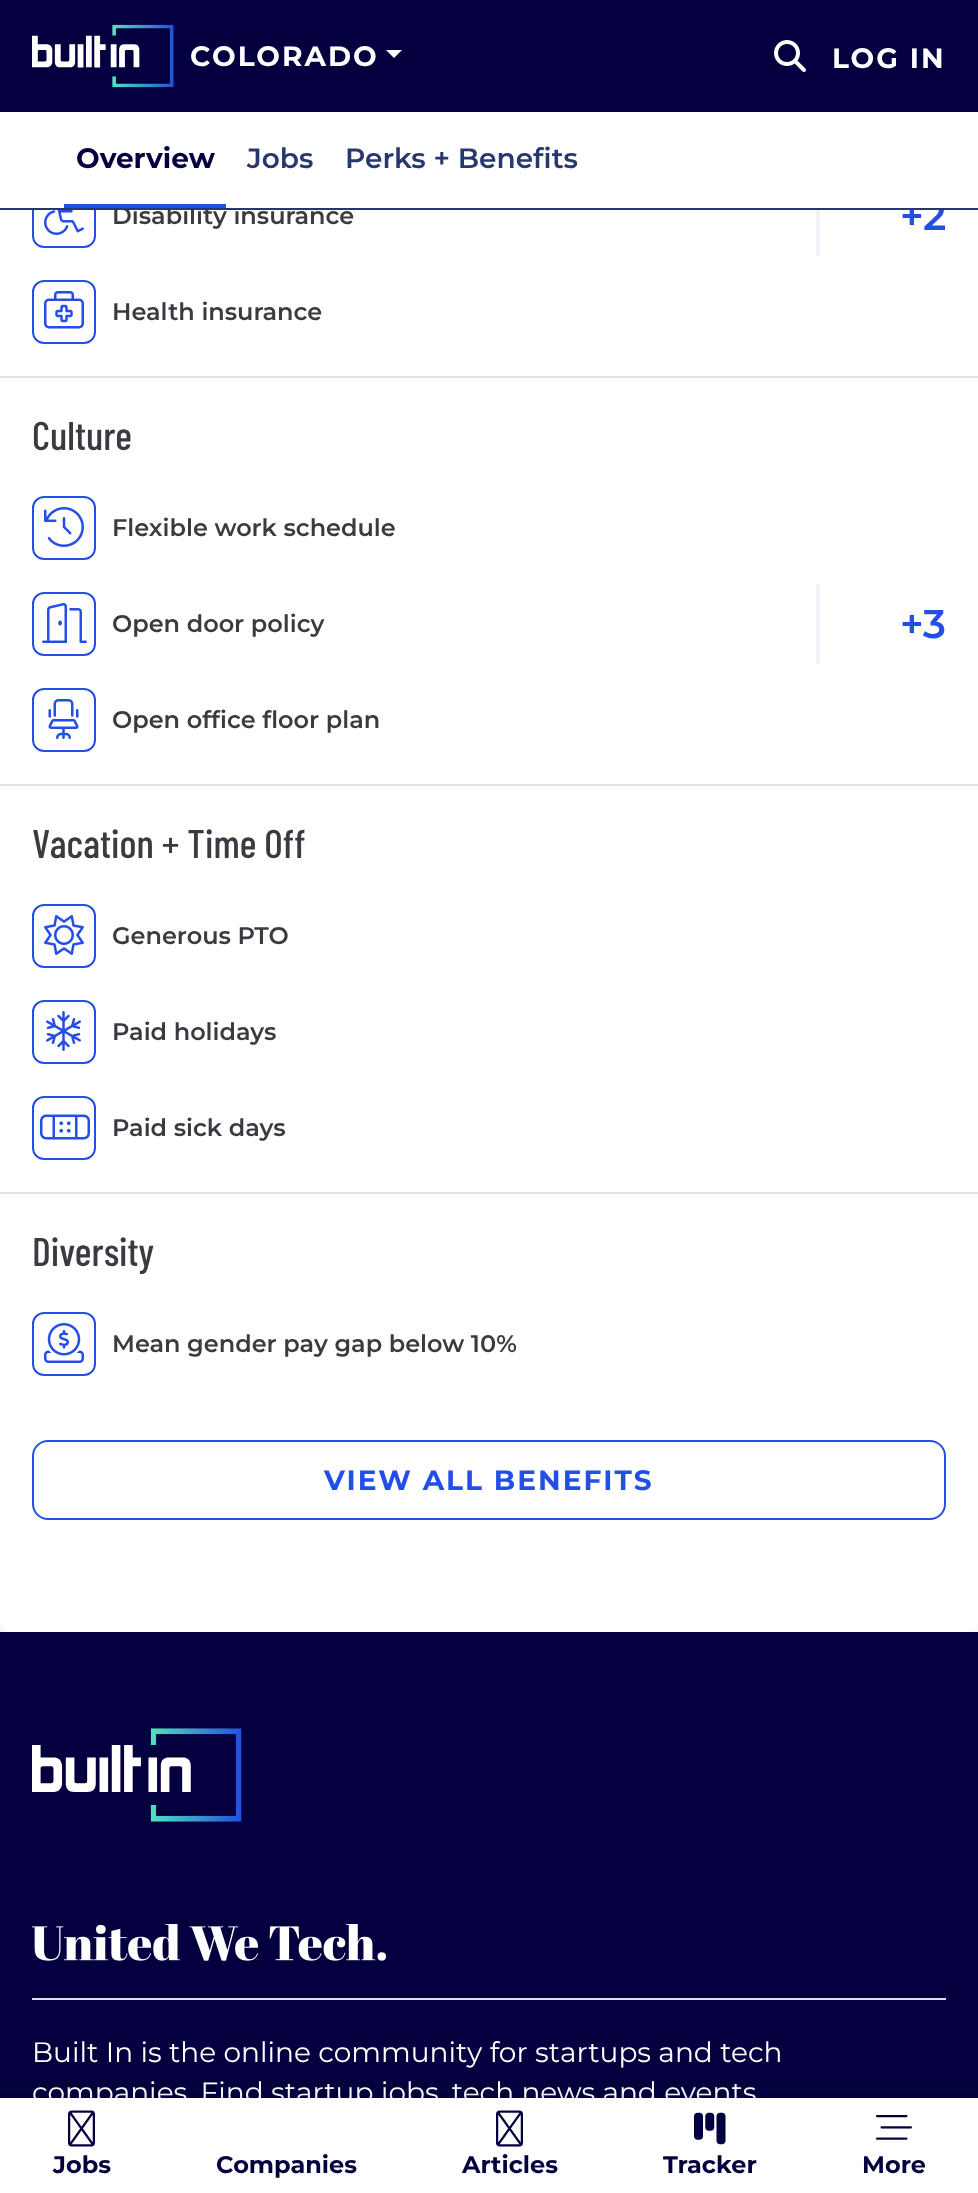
(async () => {
    const canvas = document.querySelector("canvas");
    canvas.width = 978;
    canvas.height = 2193;
    const context = canvas.getContext("2d");
    context.miterLimit = 4;
    context.fontKerning = "normal";
    function write(s, x, y, font, color) {
        context.font = font;
        context.fillStyle = color;
        context.fillText(s, x, y);
    }
    function block(x, y, w, h, color) {
        context.fillStyle = color;
        context.fillRect(x, y, w, h);
    }
    async function photo(src, x, y, w, h) {
        const img = new Image();
        img.src = src;
        await img.decode();
        context.drawImage(img, x, y, w, h);
    }

    block(0, 0, 978, 2193, "rgb(255, 255, 255)");
    await photo("media/3.png", 0, 1620, 978, 12);
    context.beginPath();
    context.moveTo(0, -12);
    context.lineTo(978, -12);
    context.lineTo(978, 1620);
    context.bezierCurveTo(978, 1626.5, 972.5, 1632, 966, 1632);
    context.lineTo(12, 1632);
    context.bezierCurveTo(5.5, 1632, 0, 1626.5, 0, 1620);
    context.closePath();
    context.fill();
    block(0, 0, 978, 112, "rgb(4, 0, 63)");
    await photo("media/1.png", 32, 24, 142, 64);
    context.letterSpacing = "2px";
    write("COLORADO", 190, 66, "100 28px 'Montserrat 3'", "rgb(255, 255, 255)");
    context.beginPath();
    context.moveTo(386, 50);
    context.lineTo(402, 50);
    context.lineTo(394, 58);
    context.closePath();
    context.fill();
    await photo("media/2.png", 774, 40, 32, 32);
    write("LOG IN", 832, 68, "100 28px 'Montserrat 3'", "rgb(255, 255, 255)");
    context.beginPath();
    context.roundRect(33, 185, 62, 62, 11);
    context.strokeStyle = "rgb(36, 79, 231)";
    context.lineWidth = 2;
    context.stroke();
    context.letterSpacing = "0px";
    write("Disability insurance", 112, 224, "100 24px 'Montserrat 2'", "rgb(58, 59, 65)");
    write("+2", 900, 230, "100 40px 'Montserrat 2'", "rgb(36, 79, 231)");
    context.fillStyle = "rgb(255, 255, 255)";
    context.beginPath();
    context.roundRect(0, 112, 978, 98, [12, 12, 0, 0]);
    context.fill();
    block(0, 208, 978, 2, "rgb(40, 56, 111)");
    block(64, 204, 162, 4, "rgb(36, 79, 231)");
    write("Overview", 76, 168, "100 28px 'Montserrat 3'", "rgb(4, 0, 63)");
    write("Jobs", 247, 168, "100 28px 'Montserrat 2'", "rgb(40, 56, 111)");
    write("Perks + Benefits", 345, 168, "100 28px 'Montserrat 2'", "rgb(40, 56, 111)");
    block(0, 376, 978, 2, "rgb(222, 226, 230)");
    await photo("media/4.png", 44, 210, 40, 25);
    context.beginPath();
    context.roundRect(33, 281, 62, 62, 11);
    context.stroke();
    await photo("media/5.png", 44, 291, 40, 38);
    write("Health insurance", 112, 320, "100 24px 'Montserrat 2'", "rgb(58, 59, 65)");
    block(816, 210, 4, 46, "rgb(240, 242, 250)");
    block(0, 784, 978, 2, "rgb(222, 226, 230)");
    write("Culture", 32, 450, "500 40px Barlow Condensed", "rgb(58, 59, 65)");
    context.beginPath();
    context.roundRect(33, 497, 62, 62, 11);
    context.stroke();
    await photo("media/6.png", 44, 507, 40, 40);
    write("Flexible work schedule", 112, 536, "100 24px 'Montserrat 2'", "rgb(58, 59, 65)");
    context.beginPath();
    context.roundRect(33, 593, 62, 62, 11);
    context.stroke();
    await photo("media/7.png", 42, 603, 45, 40);
    write("Open door policy", 112, 632, "100 24px 'Montserrat 2'", "rgb(58, 59, 65)");
    context.beginPath();
    context.roundRect(33, 689, 62, 62, 11);
    context.stroke();
    await photo("media/8.png", 48, 699, 31, 40);
    write("Open office floor plan", 112, 728, "100 24px 'Montserrat 2'", "rgb(58, 59, 65)");
    block(816, 584, 4, 80, "rgb(240, 242, 250)");
    write("+3", 900, 638, "100 40px 'Montserrat 2'", "rgb(36, 79, 231)");
    block(0, 1192, 978, 2, "rgb(222, 226, 230)");
    write("Vacation + Time Off", 32, 858, "500 40px Barlow Condensed", "rgb(58, 59, 65)");
    context.beginPath();
    context.roundRect(33, 905, 62, 62, 11);
    context.stroke();
    await photo("media/9.png", 44, 915, 40, 40);
    write("Generous PTO", 112, 944, "100 24px 'Montserrat 2'", "rgb(58, 59, 65)");
    context.beginPath();
    context.roundRect(33, 1001, 62, 62, 11);
    context.stroke();
    await photo("media/10.png", 46, 1011, 35, 40);
    write("Paid holidays", 112, 1040, "100 24px 'Montserrat 2'", "rgb(58, 59, 65)");
    context.beginPath();
    context.roundRect(33, 1097, 62, 62, 11);
    context.stroke();
    await photo("media/11.png", 40, 1114, 50, 26);
    write("Paid sick days", 112, 1136, "100 24px 'Montserrat 2'", "rgb(58, 59, 65)");
    write("Diversity", 32, 1266, "500 40px Barlow Condensed", "rgb(58, 59, 65)");
    context.beginPath();
    context.roundRect(33, 1313, 62, 62, 11);
    context.stroke();
    await photo("media/12.png", 44, 1323, 40, 40);
    write("Mean gender pay gap below 10%", 112, 1352, "100 24px 'Montserrat 2'", "rgb(58, 59, 65)");
    context.beginPath();
    context.roundRect(33, 1441, 912, 78, 15);
    context.stroke();
    context.letterSpacing = "2px";
    write("VIEW ALL BENEFITS", 324, 1490, "100 28px 'Montserrat 3'", "rgb(36, 79, 231)");
    block(0, 1632, 978, 466, "rgb(4, 0, 63)");
    await photo("media/13.png", 32, 1728, 210, 94);
    block(32, 1998, 914, 2, "rgb(222, 226, 230)");
    await photo("media/14.png", 32, 1924, 354, 37);
    context.letterSpacing = "0px";
    write("Built In is the online community for startups and tech", 32, 2062, "100 28px Montserrat", "rgb(255, 255, 255)");
    write("companies. Find startup jobs, tech news and events", 32, 2102, "100 28px Montserrat", "rgb(255, 255, 255)");
    context.fillStyle = "rgba(0, 0, 0, 0.12)";
    context.filter = "blur(10px)";
    context.beginPath();
    context.rect(0, 2100, 978, 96);
    context.fill();
    context.filter = "none";
    context.fillStyle = "rgba(0, 0, 0, 0.2)";
    context.filter = "blur(4px)";
    context.beginPath();
    context.rect(0, 2102, 978, 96);
    context.fill();
    context.filter = "none";
    block(0, 2098, 978, 95, "rgb(255, 255, 255)");
    await photo("media/15.png", 68, 2110, 27, 37);
    write("Jobs", 53, 2173, "100 24px 'Montserrat 3'", "rgb(4, 0, 63)");
    write("Companies", 216, 2173, "100 24px 'Montserrat 3'", "rgb(4, 0, 63)");
    await photo("media/15.png", 496, 2110, 27, 37);
    write("Articles", 462, 2173, "100 24px 'Montserrat 3'", "rgb(4, 0, 63)");
    await photo("media/16.png", 694, 2112, 32, 33);
    write("Tracker", 663, 2173, "100 24px 'Montserrat 3'", "rgb(4, 0, 63)");
    await photo("media/17.png", 876, 2115, 36, 25);
    write("More", 862, 2173, "100 24px 'Montserrat 3'", "rgb(4, 0, 63)");
})();
